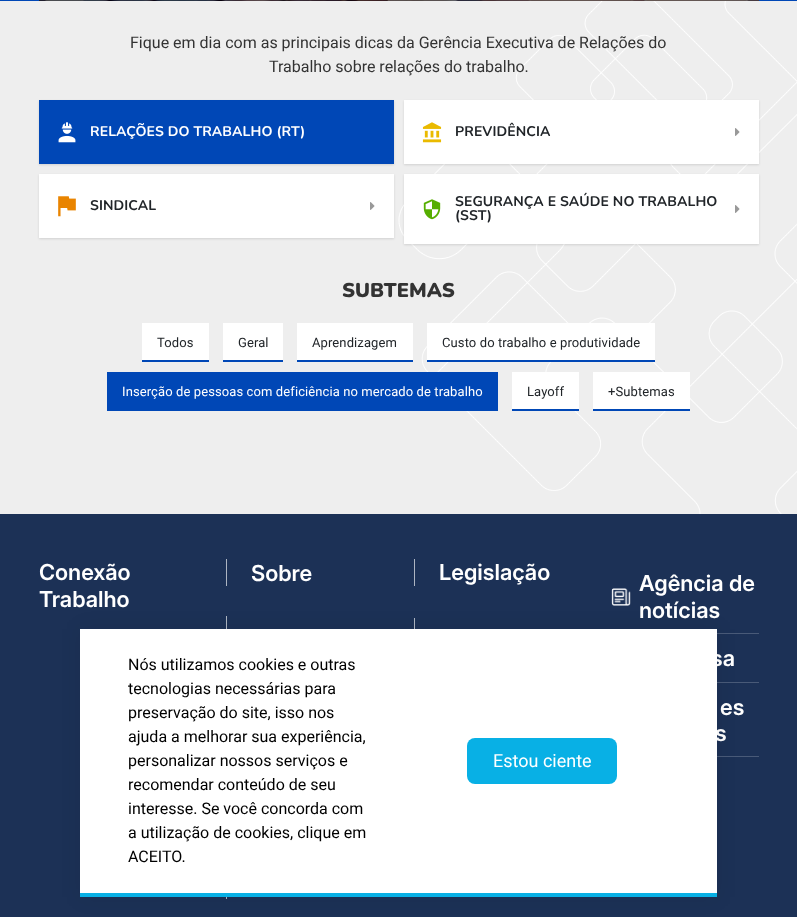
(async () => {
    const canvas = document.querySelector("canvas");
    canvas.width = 797;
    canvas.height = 917;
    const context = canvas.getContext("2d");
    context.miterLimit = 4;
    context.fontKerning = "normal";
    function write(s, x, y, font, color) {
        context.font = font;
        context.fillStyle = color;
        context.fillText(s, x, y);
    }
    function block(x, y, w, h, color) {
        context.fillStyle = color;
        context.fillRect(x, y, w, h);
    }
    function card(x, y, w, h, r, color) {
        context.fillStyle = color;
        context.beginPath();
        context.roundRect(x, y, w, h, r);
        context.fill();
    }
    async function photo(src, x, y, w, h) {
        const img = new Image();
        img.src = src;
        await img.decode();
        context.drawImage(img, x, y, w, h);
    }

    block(0, 0, 797, 917, "rgb(238, 238, 238)");
    await photo("media/1.png", 398, 1, 399, 513);
    block(0, 0, 797, 1, "rgb(0, 71, 182)");
    await photo("media/2.png", 39, 0, 720, 1);
    write("Fique em dia com as principais dicas da Gerência Executiva de Relações do", 130, 48, "16px Roboto", "rgb(51, 51, 51)");
    write("Trabalho sobre relações do trabalho.", 269, 72, "16px Roboto", "rgb(51, 51, 51)");
    context.fillStyle = "rgba(0, 0, 0, 0.12)";
    context.filter = "blur(1px)";
    context.beginPath();
    context.rect(39, 101, 355, 64);
    context.fill();
    context.filter = "none";
    block(39, 100, 355, 64, "rgb(0, 71, 182)");
    await photo("media/3.png", 58, 122, 18, 21);
    context.letterSpacing = "0.1px";
    write("RELAÇÕES DO TRABALHO (RT)", 90, 136, "bold 14px Nunito", "rgb(255, 255, 255)");
    context.fillStyle = "rgba(0, 0, 0, 0.12)";
    context.filter = "blur(1px)";
    context.beginPath();
    context.rect(404, 101, 355, 64);
    context.fill();
    context.filter = "none";
    block(404, 100, 355, 64, "rgb(255, 255, 255)");
    await photo("media/4.png", 422, 122, 20, 21);
    write("PREVIDÊNCIA", 455, 136, "bold 14px Nunito", "rgb(33, 37, 41)");
    await photo("media/5.png", 735, 128, 5, 8);
    context.fillStyle = "rgba(0, 0, 0, 0.12)";
    context.filter = "blur(1px)";
    context.beginPath();
    context.rect(39, 175, 355, 64);
    context.fill();
    context.filter = "none";
    block(39, 174, 355, 64, "rgb(255, 255, 255)");
    await photo("media/6.png", 58, 196, 18, 21);
    write("SINDICAL", 90, 210, "bold 14px Nunito", "rgb(33, 37, 41)");
    await photo("media/5.png", 370, 202, 5, 8);
    context.fillStyle = "rgba(0, 0, 0, 0.12)";
    context.filter = "blur(1px)";
    context.beginPath();
    context.rect(404, 175, 355, 70);
    context.fill();
    context.filter = "none";
    block(404, 174, 355, 70, "rgb(255, 255, 255)");
    await photo("media/7.png", 423, 199, 18, 21);
    write("SEGURANÇA E SAÚDE NO TRABALHO", 455, 206, "bold 14px Nunito", "rgb(33, 37, 41)");
    write("(SST)", 455, 220, "bold 14px Nunito", "rgb(33, 37, 41)");
    await photo("media/5.png", 735, 205, 5, 8);
    context.letterSpacing = "0px";
    write("SUBTEMAS", 342, 297, "900 20px Nunito", "rgb(51, 51, 51)");
    block(142, 323, 67, 37, "rgb(255, 255, 255)");
    context.letterSpacing = "0.1px";
    write("Todos", 157, 347, "13px Roboto", "rgb(33, 37, 41)");
    block(142, 360, 67, 2, "rgb(0, 71, 182)");
    block(223, 323, 60, 37, "rgb(255, 255, 255)");
    write("Geral", 238, 347, "13px Roboto", "rgb(33, 37, 41)");
    block(223, 360, 60, 2, "rgb(0, 71, 182)");
    block(297, 323, 116, 37, "rgb(255, 255, 255)");
    write("Aprendizagem", 312, 347, "13px Roboto", "rgb(33, 37, 41)");
    block(297, 360, 116, 2, "rgb(0, 71, 182)");
    block(427, 323, 228, 37, "rgb(255, 255, 255)");
    write("Custo do trabalho e produtividade", 442, 347, "13px Roboto", "rgb(33, 37, 41)");
    block(427, 360, 228, 2, "rgb(0, 71, 182)");
    block(107, 372, 391, 39, "rgb(0, 71, 182)");
    write("Inserção de pessoas com deficiência no mercado de trabalho", 122, 396, "13px Roboto", "rgb(255, 255, 255)");
    block(512, 372, 67, 37, "rgb(255, 255, 255)");
    write("Layoff", 527, 396, "13px Roboto", "rgb(33, 37, 41)");
    block(512, 409, 67, 2, "rgb(0, 71, 182)");
    block(593, 372, 97, 37, "rgb(255, 255, 255)");
    write("+Subtemas", 608, 396, "13px Roboto", "rgb(33, 37, 41)");
    block(593, 409, 97, 2, "rgb(0, 71, 182)");
    block(0, 514, 797, 403, "rgb(28, 49, 86)");
    context.letterSpacing = "0px";
    write("Conexão", 39, 580, "600 22px Inter", "rgb(255, 255, 255)");
    write("Trabalho", 39, 607, "600 22px Inter", "rgb(255, 255, 255)");
    block(226, 559, 1, 27, "rgb(173, 181, 194)");
    write("Sobre", 251, 581, "600 22px Inter", "rgb(255, 255, 255)");
    block(414, 559, 1, 27, "rgb(173, 181, 194)");
    write("Legislação", 439, 580, "600 22px Inter", "rgb(255, 255, 255)");
    block(226, 616, 1, 283, "rgb(173, 181, 194)");
    block(414, 618, 1, 11, "rgb(173, 181, 194)");
    await photo("media/8.png", 611, 588, 20, 18);
    write("Agência de", 639, 591, "600 22px Inter", "rgb(255, 255, 255)");
    write("notícias", 639, 618, "600 22px Inter", "rgb(255, 255, 255)");
    block(717, 633, 42, 1, "rgb(73, 90, 120)");
    write("sa", 711, 666, "600 22px Inter", "rgb(255, 255, 255)");
    block(717, 682, 42, 1, "rgb(73, 90, 120)");
    write("es", 720, 715, "600 22px Inter", "rgb(255, 255, 255)");
    write("s", 715, 741, "600 22px Inter", "rgb(255, 255, 255)");
    block(717, 756, 42, 1, "rgb(73, 90, 120)");
    context.fillStyle = "rgba(0, 0, 0, 0.07)";
    context.filter = "blur(10px)";
    context.beginPath();
    context.rect(80, 629, 637, 268);
    context.fill();
    context.filter = "none";
    block(80, 629, 637, 264, "rgb(255, 255, 255)");
    block(80, 893, 637, 4, "rgb(8, 176, 229)");
    write("Nós utilizamos cookies e outras", 128, 670, "16px Roboto", "rgb(0, 0, 0)");
    write("tecnologias necessárias para", 128, 694, "16px Roboto", "rgb(0, 0, 0)");
    write("preservação do site, isso nos", 128, 718, "16px Roboto", "rgb(0, 0, 0)");
    write("ajuda a melhorar sua experiência,", 128, 742, "16px Roboto", "rgb(0, 0, 0)");
    write("personalizar nossos serviços e", 128, 766, "16px Roboto", "rgb(0, 0, 0)");
    write("recomendar conteúdo de seu", 128, 790, "16px Roboto", "rgb(0, 0, 0)");
    write("interesse. Se você concorda com", 128, 814, "16px Roboto", "rgb(0, 0, 0)");
    write("a utilização de cookies, clique em", 128, 838, "16px Roboto", "rgb(0, 0, 0)");
    write("ACEITO.", 128, 862, "16px Roboto", "rgb(0, 0, 0)");
    card(467, 738, 150, 46, 8, "rgb(8, 176, 229)");
    write("Estou ciente", 493, 767, "18px Roboto", "rgb(255, 255, 255)");
})();
